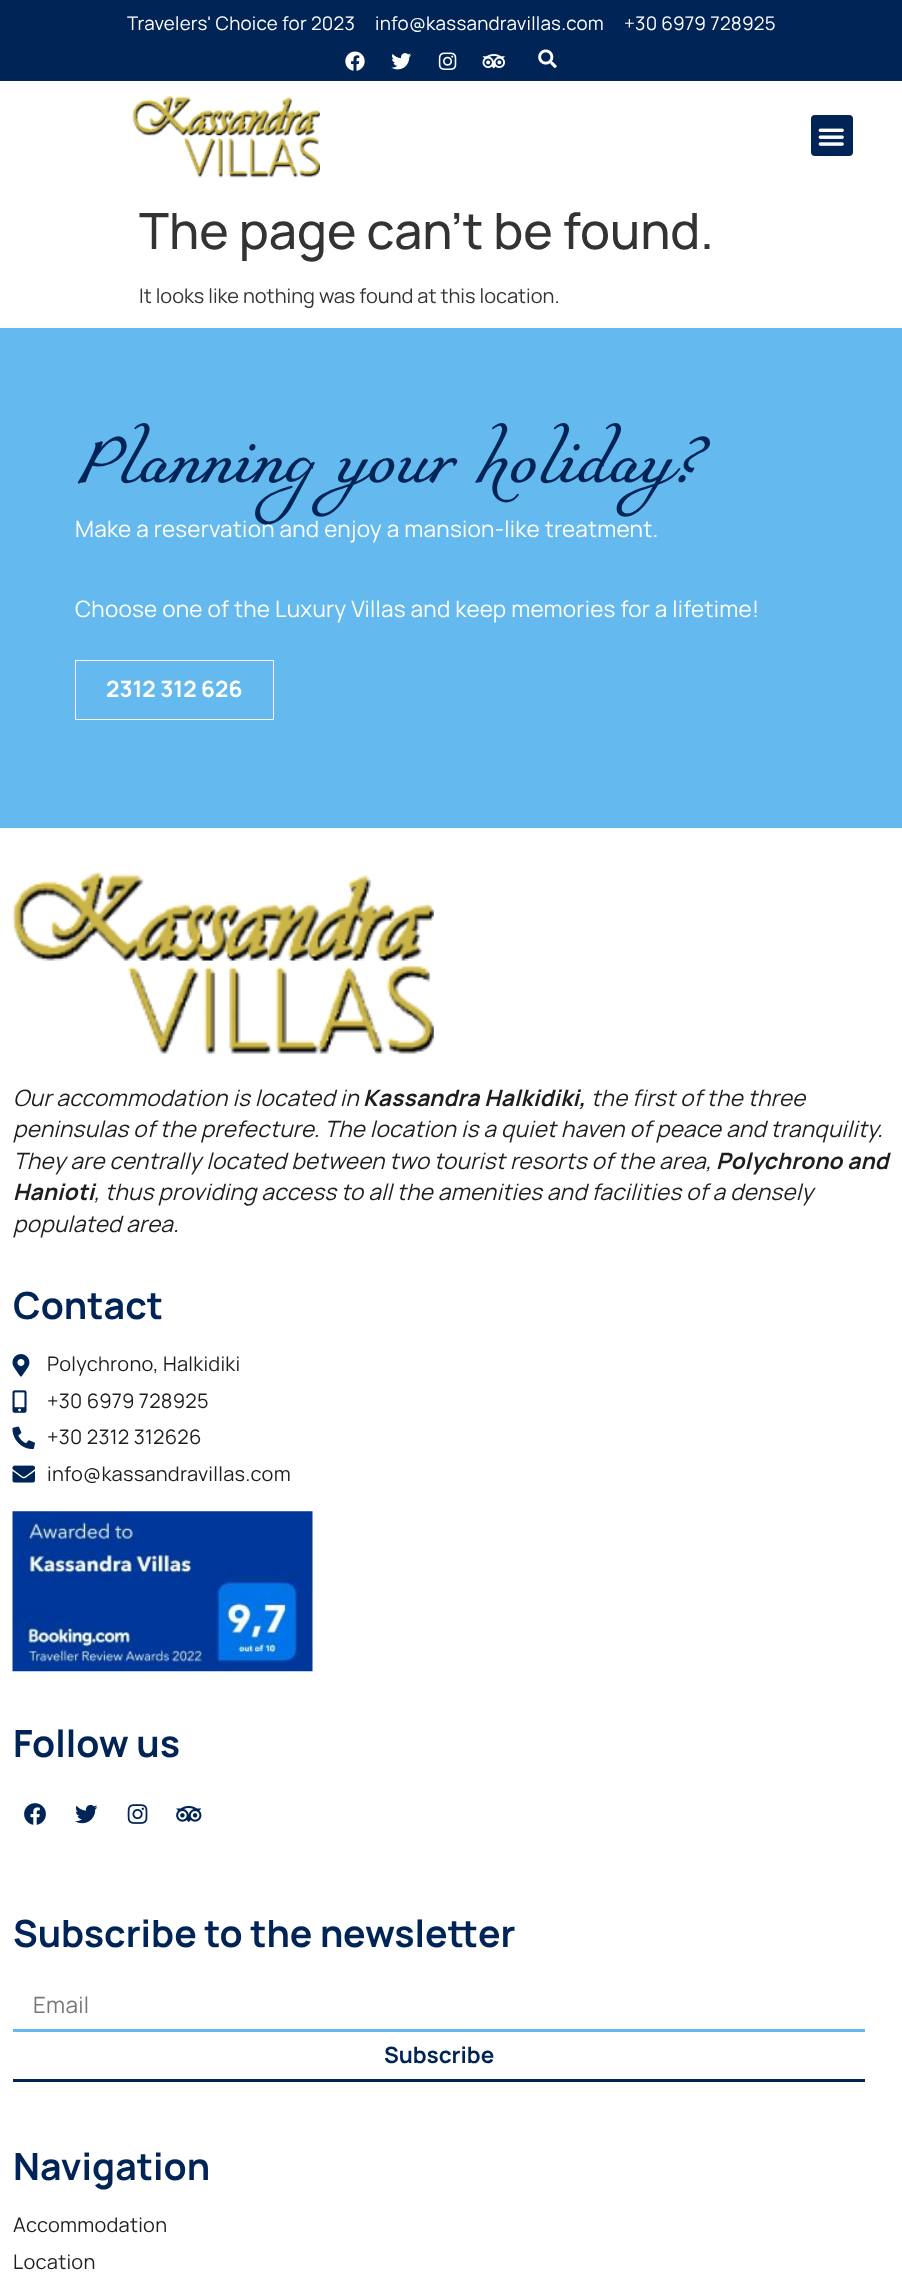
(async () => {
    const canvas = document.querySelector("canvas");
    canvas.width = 902;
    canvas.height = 2278;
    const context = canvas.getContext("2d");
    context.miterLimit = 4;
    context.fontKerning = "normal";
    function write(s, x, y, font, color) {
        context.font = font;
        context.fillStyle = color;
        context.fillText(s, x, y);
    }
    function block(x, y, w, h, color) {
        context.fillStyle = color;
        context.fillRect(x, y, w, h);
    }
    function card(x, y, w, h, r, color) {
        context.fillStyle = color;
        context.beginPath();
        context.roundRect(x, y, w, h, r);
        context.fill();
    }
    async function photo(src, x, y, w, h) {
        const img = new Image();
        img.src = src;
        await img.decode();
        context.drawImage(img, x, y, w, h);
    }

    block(0, 0, 902, 2278, "rgb(255, 255, 255)");
    block(0, 0, 902, 81, "rgb(0, 36, 86)");
    context.letterSpacing = "0.25px";
    write("Travelers' Choice for 2023", 127, 30, "18.75px Manrope", "rgb(255, 255, 255)");
    write("info@kassandravillas.com", 375, 30, "18.75px Manrope", "rgb(255, 255, 255)");
    write("+30 6979 728925", 624, 30, "18.75px Manrope", "rgb(255, 255, 255)");
    await photo("media/1.png", 345, 51, 20, 20);
    await photo("media/2.png", 391, 53, 21, 17);
    await photo("media/3.png", 438, 52, 19, 18);
    await photo("media/4.png", 482, 54, 23, 15);
    await photo("media/5.png", 538, 49, 19, 19);
    await photo("media/6.png", 132, 95, 188, 83);
    card(811, 115, 42, 41, 4, "rgb(0, 36, 86)");
    await photo("media/7.png", 818, 128, 26, 18);
    context.letterSpacing = "0px";
    write("The page can’t be found.", 139, 249, "500 50px Manrope", "rgb(51, 51, 51)");
    write("It looks like nothing was found at this location.", 139, 303, "20px Manrope", "rgb(51, 51, 51)");
    block(0, 328, 902, 500, "rgb(100, 185, 238)");
    context.letterSpacing = "0.5px";
    write("Planning your holiday?", 75, 482, "italic bold 50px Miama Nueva", "rgb(0, 36, 86)");
    context.letterSpacing = "0.25px";
    write("Make a reservation and enjoy a mansion-like treatment.", 75, 537, "22.5px Manrope", "rgb(255, 255, 255)");
    write("Choose one of the Luxury Villas and keep memories for a lifetime!", 75, 617, "22.5px Manrope", "rgb(255, 255, 255)");
    context.strokeStyle = "rgb(255, 255, 255)";
    context.strokeRect(75.5, 660.5, 198, 59);
    context.letterSpacing = "0px";
    write("2312 312 626", 106, 697, "bold 22.5px Manrope", "rgb(255, 255, 255)");
    await photo("media/8.png", 12, 871, 422, 183);
    context.letterSpacing = "0.25px";
    write("Our accommodation is located in", 13, 1106, "italic 22.5px Manrope", "rgb(30, 30, 30)");
    write("Kassandra Halkidiki,", 363, 1106, "italic bold 22.5px Manrope", "rgb(30, 30, 30)");
    write("the first of the three", 591, 1106, "italic 22.5px Manrope", "rgb(30, 30, 30)");
    write("peninsulas of the prefecture. The location is a quiet haven of peace and tranquility.", 13, 1137, "italic 22.5px Manrope", "rgb(30, 30, 30)");
    write("They are centrally located between two tourist resorts of the area,", 13, 1169, "italic 22.5px Manrope", "rgb(30, 30, 30)");
    write("Polychrono and", 716, 1169, "italic bold 22.5px Manrope", "rgb(30, 30, 30)");
    write("Hanioti", 13, 1200, "italic bold 22.5px Manrope", "rgb(30, 30, 30)");
    write(", thus providing access to all the amenities and facilities of a densely", 94, 1200, "italic 22.5px Manrope", "rgb(30, 30, 30)");
    write("populated area.", 13, 1232, "italic 22.5px Manrope", "rgb(30, 30, 30)");
    context.letterSpacing = "0px";
    write("Contact", 13, 1319, "bold 37.5px Manrope", "rgb(0, 36, 86)");
    await photo("media/9.png", 12, 1354, 18, 23);
    context.letterSpacing = "0.25px";
    write("Polychrono, Halkidiki", 47, 1371, "20px Manrope", "rgb(30, 30, 30)");
    await photo("media/10.png", 12, 1390, 15, 23);
    write("+30 6979 728925", 47, 1408, "20px Manrope", "rgb(30, 30, 30)");
    await photo("media/11.png", 12, 1426, 23, 24);
    write("+30 2312 312626", 47, 1444, "20px Manrope", "rgb(30, 30, 30)");
    await photo("media/12.png", 12, 1465, 23, 18);
    write("info@kassandravillas.com", 47, 1481, "20px Manrope", "rgb(30, 30, 30)");
    await photo("media/13.png", 12, 1511, 301, 161);
    context.letterSpacing = "0px";
    write("Follow us", 13, 1757, "bold 37.5px Manrope", "rgb(0, 36, 86)");
    await photo("media/14.png", 24, 1803, 22, 22);
    await photo("media/15.png", 75, 1804, 23, 20);
    await photo("media/16.png", 127, 1804, 21, 20);
    await photo("media/17.png", 176, 1805, 26, 18);
    write("Subscribe to the newsletter", 13, 1947, "bold 37.5px Manrope", "rgb(0, 36, 86)");
    block(13, 2029, 852, 3, "rgb(100, 185, 238)");
    context.letterSpacing = "0.25px";
    write("Email", 33, 2013, "22.5px Manrope", "rgb(120, 120, 120)");
    block(13, 2079, 852, 3, "rgb(0, 36, 86)");
    context.letterSpacing = "0px";
    write("Subscribe", 384, 2063, "bold 22.5px Manrope", "rgb(0, 36, 86)");
    write("Navigation", 13, 2180, "bold 37.5px Manrope", "rgb(0, 36, 86)");
    context.letterSpacing = "0.25px";
    write("Accommodation", 13, 2232, "20px Manrope", "rgb(30, 30, 30)");
    write("Location", 13, 2269, "20px Manrope", "rgb(30, 30, 30)");
})();
